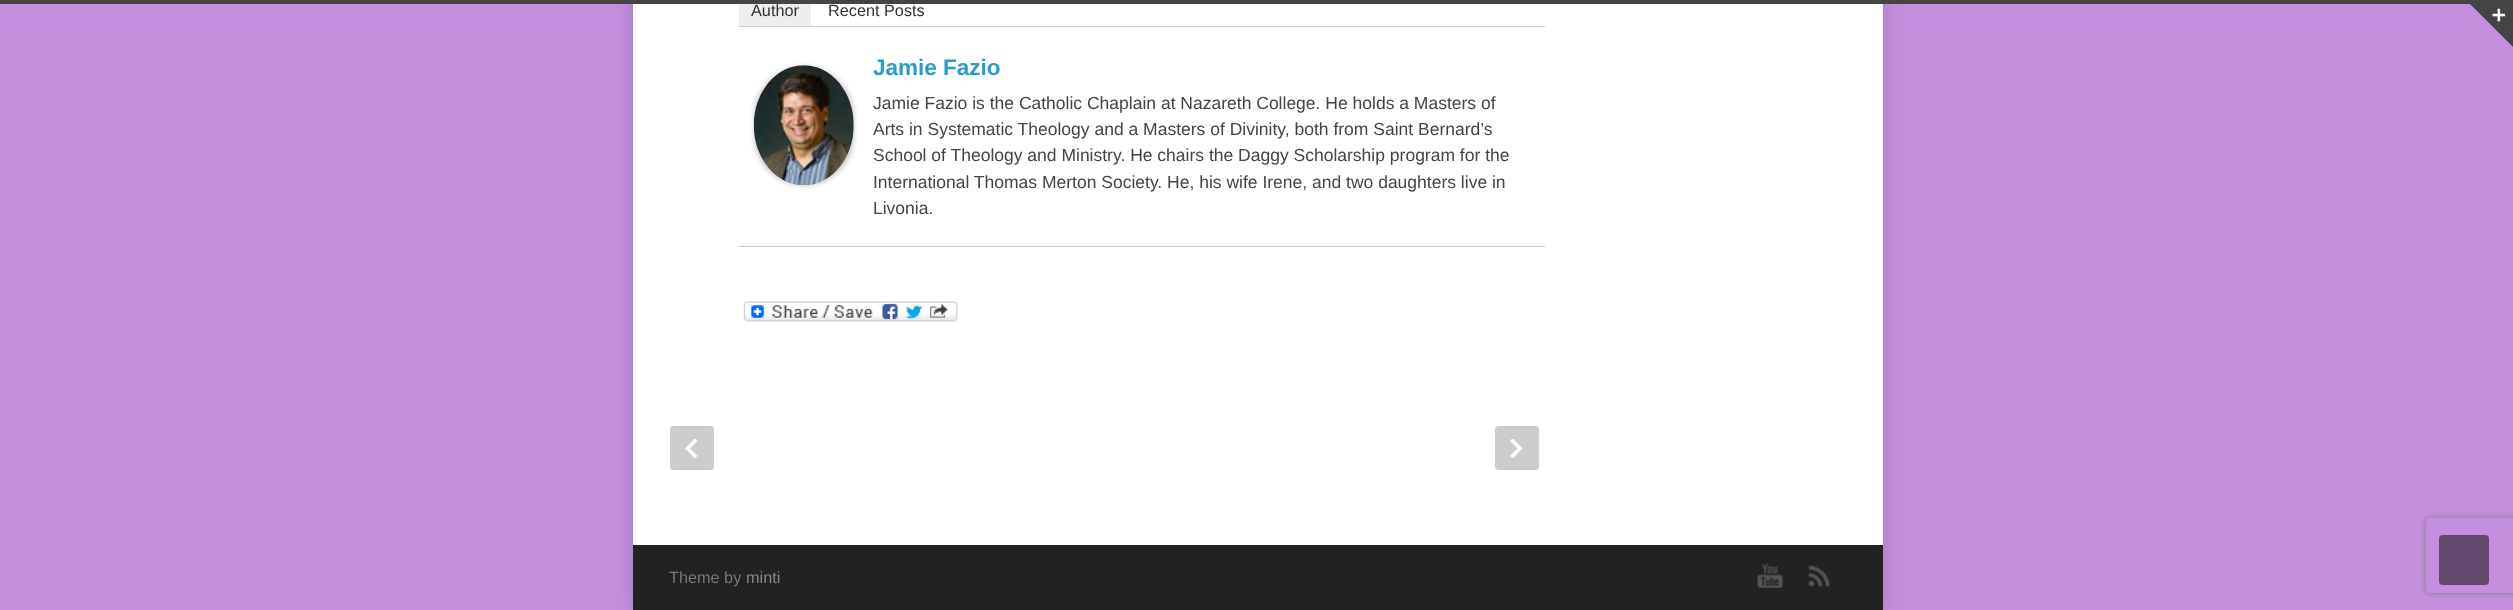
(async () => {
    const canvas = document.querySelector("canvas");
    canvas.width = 2513;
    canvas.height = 610;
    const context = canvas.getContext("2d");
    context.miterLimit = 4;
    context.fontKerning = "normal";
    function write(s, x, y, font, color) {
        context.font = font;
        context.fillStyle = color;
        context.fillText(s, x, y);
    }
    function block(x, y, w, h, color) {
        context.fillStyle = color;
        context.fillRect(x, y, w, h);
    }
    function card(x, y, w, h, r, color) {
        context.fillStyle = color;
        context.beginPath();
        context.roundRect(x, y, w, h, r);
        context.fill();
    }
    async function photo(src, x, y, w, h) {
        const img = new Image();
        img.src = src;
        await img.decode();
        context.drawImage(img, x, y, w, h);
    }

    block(0, 0, 2513, 610, "rgb(197, 143, 224)");
    context.fillStyle = "rgba(0, 0, 0, 0.16)";
    context.filter = "blur(10px)";
    context.beginPath();
    context.rect(633, -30, 1250, 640);
    context.fill();
    context.filter = "none";
    block(0, 0, 2470, 4, "rgb(68, 68, 68)");
    context.beginPath();
    context.moveTo(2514, -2);
    context.lineTo(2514, 48);
    context.lineTo(2464, -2);
    context.closePath();
    context.fill();
    await photo("media/1.png", 2492, 8, 14, 14);
    block(633, 4, 1250, 541, "rgb(255, 255, 255)");
    block(739, 26, 806, 1, "rgb(204, 204, 204)");
    block(739, 4, 72, 22, "rgb(238, 238, 238)");
    write("Author", 751, 16, "16.25px Liberation Sans", "rgb(51, 51, 51)");
    write("Recent Posts", 828, 16, "16.25px Liberation Sans", "rgb(51, 51, 51)");
    block(739, 246, 806, 1, "rgb(204, 204, 204)");
    context.fillStyle = "rgba(0, 0, 0, 0.2)";
    context.filter = "blur(2.5px)";
    context.beginPath();
    context.roundRect(754, 66, 100, 120, 50);
    context.fill();
    context.filter = "none";
    await photo("media/2.png", 753, 65, 101, 121);
    write("Jamie Fazio", 873, 75, "bold 22.5px Liberation Sans", "rgb(40, 157, 204)");
    write("Jamie Fazio is the Catholic Chaplain at Nazareth College. He holds a Masters of", 873, 109, "17.5px Liberation Sans", "rgb(68, 68, 68)");
    write("Arts in Systematic Theology and a Masters of Divinity, both from Saint Bernard’s", 873, 135, "17.5px Liberation Sans", "rgb(68, 68, 68)");
    write("School of Theology and Ministry. He chairs the Daggy Scholarship program for the", 873, 161, "17.5px Liberation Sans", "rgb(68, 68, 68)");
    write("International Thomas Merton Society. He, his wife Irene, and two daughters live in", 873, 188, "17.5px Liberation Sans", "rgb(68, 68, 68)");
    write("Livonia.", 873, 214, "17.5px Liberation Sans", "rgb(68, 68, 68)");
    await photo("media/3.png", 743, 301, 215, 21);
    card(670, 426, 44, 44, 4, "rgb(204, 204, 204)");
    await photo("media/4.png", 685, 439, 13, 19);
    card(1495, 426, 44, 44, 4, "rgb(204, 204, 204)");
    await photo("media/5.png", 1510, 439, 13, 19);
    block(633, 545, 1250, 65, "rgb(34, 34, 34)");
    write("Theme by", 669, 583, "16.25px Liberation Sans", "rgb(119, 119, 119)");
    write("minti", 746, 583, "16.25px Liberation Sans", "rgb(136, 136, 136)");
    await photo("media/6.png", 1757, 564, 26, 24);
    await photo("media/7.png", 1808, 565, 22, 22);
    context.save();
    context.beginPath();
    context.moveTo(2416, 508);
    context.lineTo(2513, 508);
    context.lineTo(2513, 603);
    context.lineTo(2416, 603);
    context.closePath();
    context.moveTo(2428.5, 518);
    context.lineTo(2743.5, 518);
    context.bezierCurveTo(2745, 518, 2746, 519, 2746, 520.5);
    context.lineTo(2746, 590.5);
    context.bezierCurveTo(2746, 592, 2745, 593, 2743.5, 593);
    context.lineTo(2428.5, 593);
    context.bezierCurveTo(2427, 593, 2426, 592, 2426, 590.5);
    context.lineTo(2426, 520.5);
    context.bezierCurveTo(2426, 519, 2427, 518, 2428.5, 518);
    context.closePath();
    context.clip("evenodd");
    context.fillStyle = "rgb(128, 128, 128)";
    context.filter = "blur(3px)";
    context.beginPath();
    context.roundRect(2426, 518, 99, 75, 2.5);
    context.fill();
    context.filter = "none";
    context.restore();
    card(2439, 535, 50, 50, 4, "rgb(99, 72, 112)");
})();
